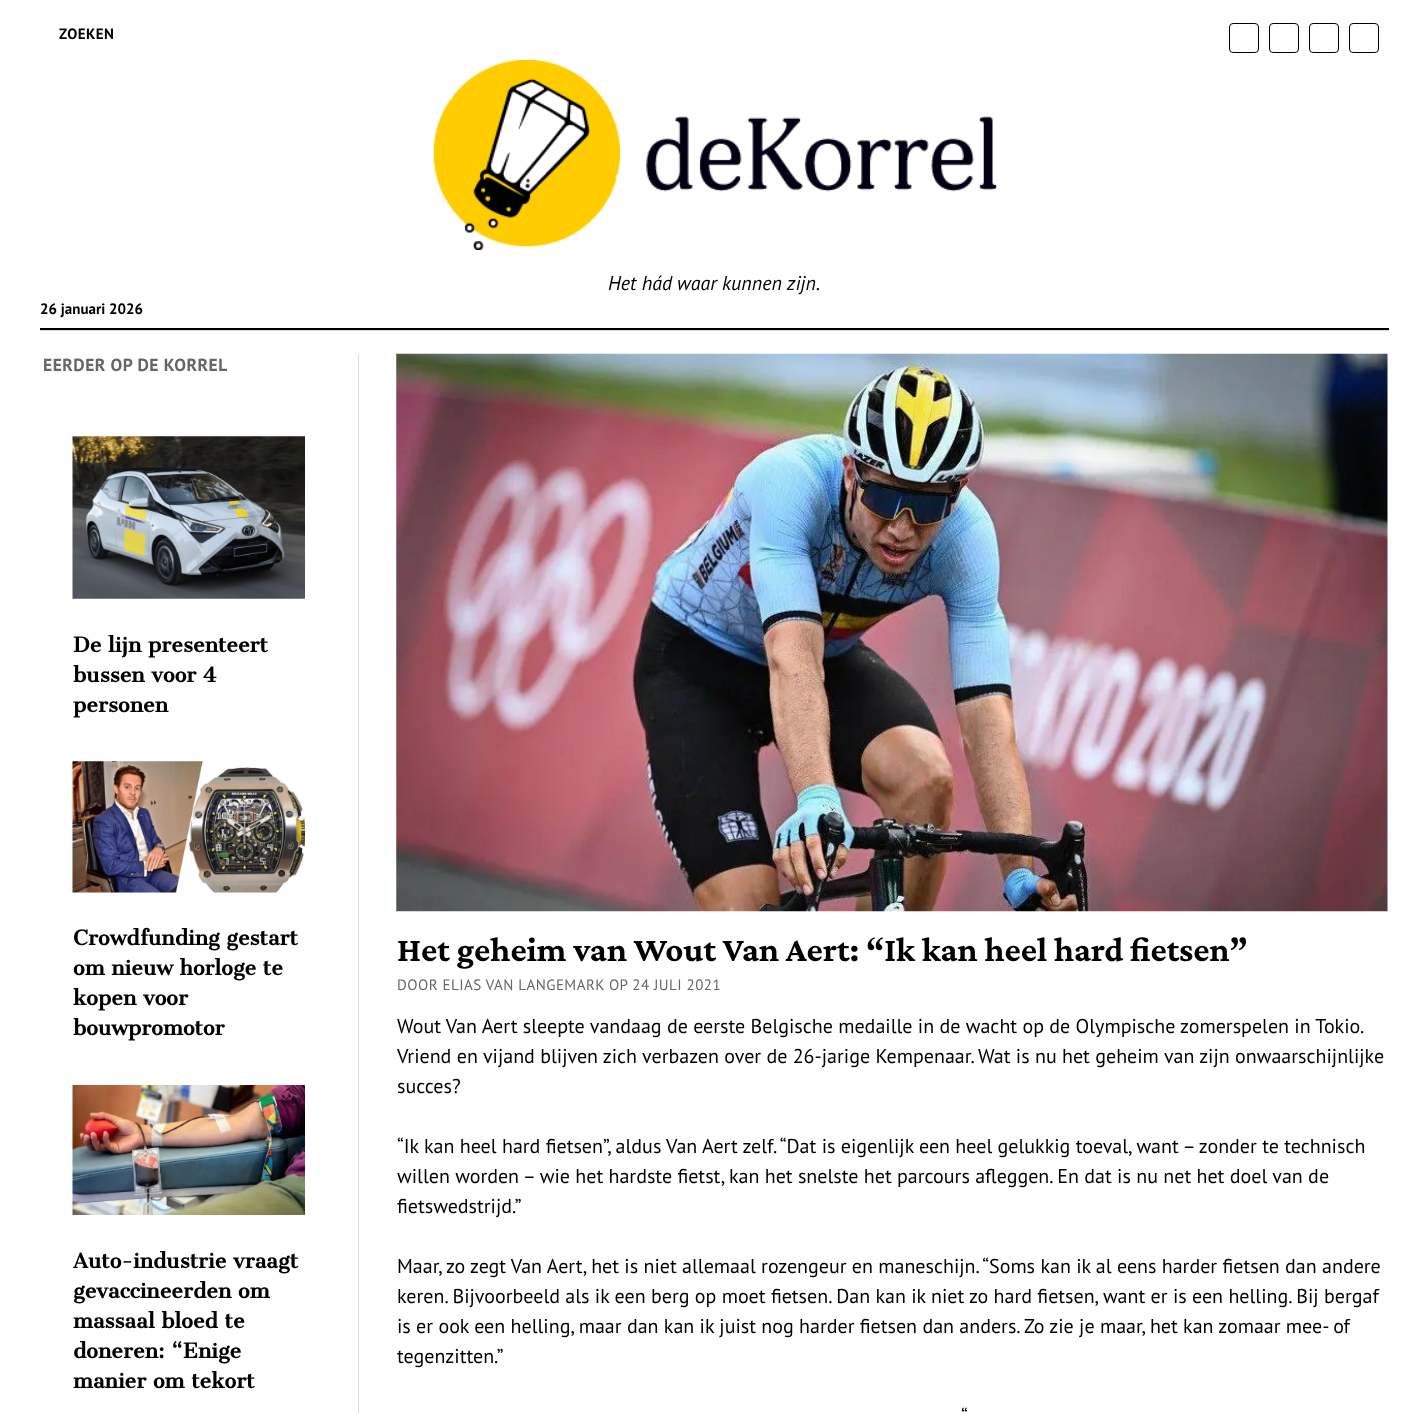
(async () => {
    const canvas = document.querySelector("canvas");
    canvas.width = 1428;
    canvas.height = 1413;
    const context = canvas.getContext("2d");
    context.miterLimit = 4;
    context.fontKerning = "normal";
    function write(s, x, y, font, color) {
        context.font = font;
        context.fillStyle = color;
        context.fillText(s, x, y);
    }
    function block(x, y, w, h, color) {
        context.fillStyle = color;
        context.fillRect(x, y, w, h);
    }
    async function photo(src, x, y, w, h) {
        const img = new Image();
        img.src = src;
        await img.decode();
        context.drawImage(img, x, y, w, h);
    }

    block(0, 0, 1428, 1413, "rgb(255, 255, 255)");
    context.letterSpacing = "0.45px";
    write("ZOEKEN", 59, 39, "bold 15px PT Sans", "rgb(0, 0, 0)");
    context.beginPath();
    context.roundRect(1229.5, 23.5, 29, 29, 3.5);
    context.strokeStyle = "rgb(0, 0, 0)";
    context.stroke();
    context.beginPath();
    context.roundRect(1269.5, 23.5, 29, 29, 3.5);
    context.stroke();
    context.beginPath();
    context.roundRect(1309.5, 23.5, 29, 29, 3.5);
    context.stroke();
    context.beginPath();
    context.roundRect(1349.5, 23.5, 29, 29, 3.5);
    context.stroke();
    await photo("media/1.png", 433, 60, 564, 190);
    context.letterSpacing = "0px";
    write("Het hád waar kunnen zijn.", 608, 290, "italic 20px PT Sans", "rgb(0, 0, 0)");
    write("26 januari 2026", 40, 314, "bold 15px PT Sans", "rgb(0, 0, 0)");
    block(40, 328, 1349, 2, "rgb(0, 0, 0)");
    block(40, 330, 1349, 1, "rgb(220, 220, 220)");
    block(358, 354, 1, 1059, "rgb(220, 220, 220)");
    context.letterSpacing = "0.5px";
    write("EERDER OP DE KORREL", 43, 371, "bold 17.5px PT Sans", "rgb(102, 102, 102)");
    await photo("media/2.png", 72, 436, 233, 163);
    context.letterSpacing = "0px";
    write("De lijn presenteert", 73, 652, "bold 20px Cantata One", "rgb(0, 0, 0)");
    write("bussen voor 4", 73, 682, "bold 20px Cantata One", "rgb(0, 0, 0)");
    write("personen", 73, 712, "bold 20px Cantata One", "rgb(0, 0, 0)");
    await photo("media/3.png", 72, 761, 233, 132);
    write("Crowdfunding gestart", 73, 945, "bold 20px Cantata One", "rgb(0, 0, 0)");
    write("om nieuw horloge te", 73, 975, "bold 20px Cantata One", "rgb(0, 0, 0)");
    write("kopen voor", 73, 1005, "bold 20px Cantata One", "rgb(0, 0, 0)");
    write("bouwpromotor", 73, 1035, "bold 20px Cantata One", "rgb(0, 0, 0)");
    await photo("media/4.png", 72, 1085, 233, 130);
    write("Auto-industrie vraagt", 73, 1268, "bold 20px Cantata One", "rgb(0, 0, 0)");
    write("gevaccineerden om", 73, 1298, "bold 20px Cantata One", "rgb(0, 0, 0)");
    write("massaal bloed te", 73, 1328, "bold 20px Cantata One", "rgb(0, 0, 0)");
    write("doneren: “Enige", 73, 1358, "bold 20px Cantata One", "rgb(0, 0, 0)");
    write("manier om tekort", 73, 1388, "bold 20px Cantata One", "rgb(0, 0, 0)");
    await photo("media/5.png", 396, 353, 992, 559);
    write("Het geheim van Wout Van Aert: “Ik kan heel hard fietsen”", 397, 961, "bold 35px Crimson Pro", "rgb(0, 0, 0)");
    context.letterSpacing = "0.45px";
    write("DOOR ELIAS VAN LANGEMARK OP 24 JULI 2021", 397, 990, "15px PT Sans", "rgb(102, 102, 102)");
    context.letterSpacing = "0px";
    write("Wout Van Aert sleepte vandaag de eerste Belgische medaille in de wacht op de Olympische zomerspelen in Tokio.", 397, 1033, "20px PT Sans", "rgb(0, 0, 0)");
    write("Vriend en vijand blijven zich verbazen over de 26-jarige Kempenaar. Wat is nu het geheim van zijn onwaarschijnlijke", 397, 1063, "20px PT Sans", "rgb(0, 0, 0)");
    write("succes?", 397, 1093, "20px PT Sans", "rgb(0, 0, 0)");
    write("“Ik kan heel hard fietsen”, aldus Van Aert zelf. “Dat is eigenlijk een heel gelukkig toeval, want – zonder te technisch", 397, 1153, "20px PT Sans", "rgb(0, 0, 0)");
    write("willen worden – wie het hardste fietst, kan het snelste het parcours afleggen. En dat is nu net het doel van de", 397, 1183, "20px PT Sans", "rgb(0, 0, 0)");
    write("fietswedstrijd.”", 397, 1213, "20px PT Sans", "rgb(0, 0, 0)");
    write("Maar, zo zegt Van Aert, het is niet allemaal rozengeur en maneschijn. “Soms kan ik al eens harder fietsen dan andere", 397, 1273, "20px PT Sans", "rgb(0, 0, 0)");
    write("keren. Bijvoorbeeld als ik een berg op moet fietsen. Dan kan ik niet zo hard fietsen, want er is een helling. Bij bergaf", 397, 1303, "20px PT Sans", "rgb(0, 0, 0)");
    write("is er ook een helling, maar dan kan ik juist nog harder fietsen dan anders. Zo zie je maar, het kan zomaar mee- of", 397, 1333, "20px PT Sans", "rgb(0, 0, 0)");
    write("tegenzitten.”", 397, 1363, "20px PT Sans", "rgb(0, 0, 0)");
    write("“", 961, 1423, "20px PT Sans", "rgb(0, 0, 0)");
})();
